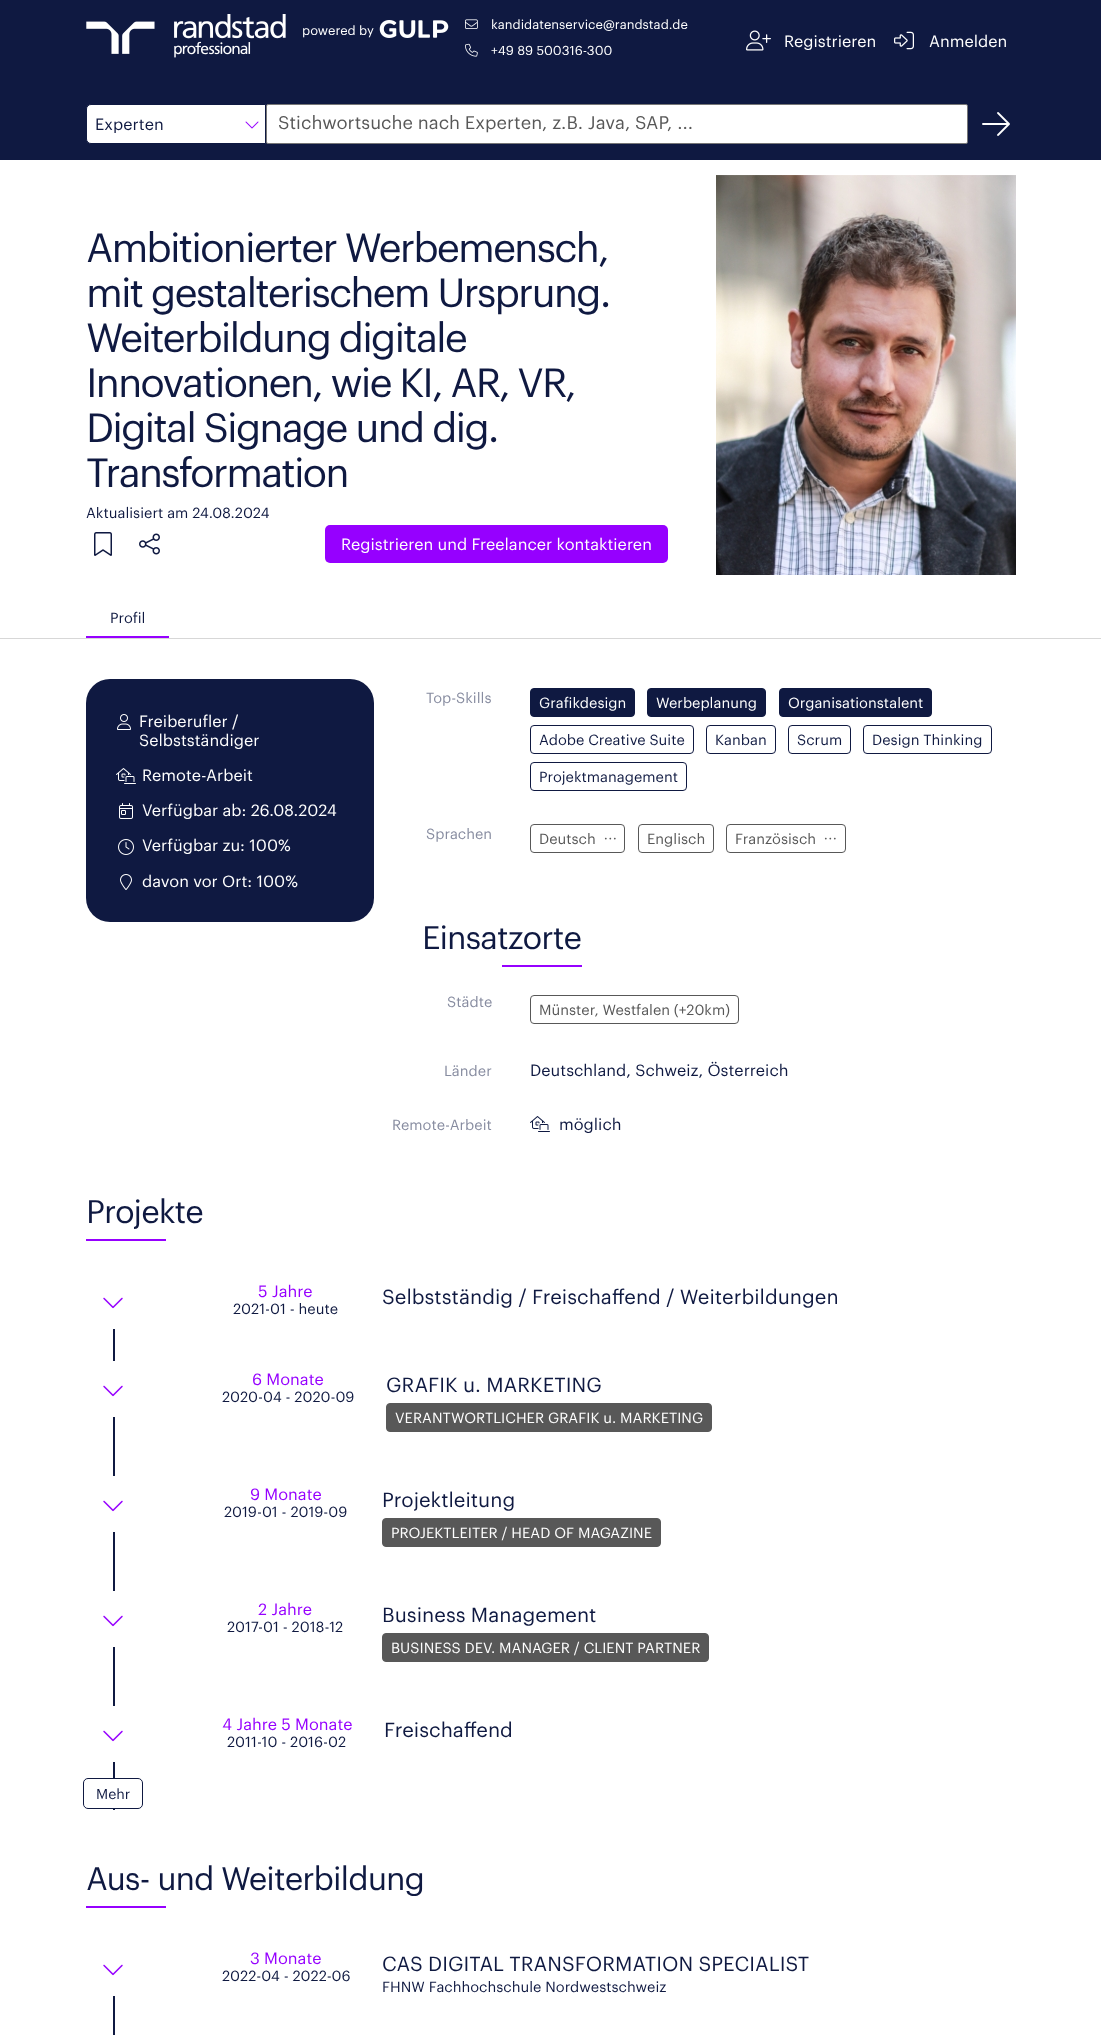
(async () => {
    const canvas = document.querySelector("canvas");
    canvas.width = 1101;
    canvas.height = 2039;
    const context = canvas.getContext("2d");
    context.miterLimit = 4;
    context.fontKerning = "normal";
    function write(s, x, y, font, color) {
        context.font = font;
        context.fillStyle = color;
        context.fillText(s, x, y);
    }
    function block(x, y, w, h, color) {
        context.fillStyle = color;
        context.fillRect(x, y, w, h);
    }
    function card(x, y, w, h, r, color) {
        context.fillStyle = color;
        context.beginPath();
        context.roundRect(x, y, w, h, r);
        context.fill();
    }
    async function photo(src, x, y, w, h) {
        const img = new Image();
        img.src = src;
        await img.decode();
        context.drawImage(img, x, y, w, h);
    }

    block(0, 0, 1101, 2039, "rgb(255, 255, 255)");
    block(0, 0, 1101, 160, "rgb(15, 25, 65)");
    await photo("media/1.png", 86, 14, 200, 44);
    write("powered by", 302, 35, "12.75px Graphik", "rgb(255, 255, 255)");
    await photo("media/2.png", 379, 20, 70, 18);
    await photo("media/3.png", 465, 19, 13, 10);
    write("kandidatenservice@randstad.de", 491, 29, "12.75px Graphik", "rgb(255, 255, 255)");
    await photo("media/4.png", 465, 43, 13, 14);
    write("+49 89 500316-300", 491, 55, "12.75px Graphik", "rgb(255, 255, 255)");
    await photo("media/5.png", 746, 30, 25, 21);
    write("Registrieren", 784, 47, "16px Graphik", "rgb(255, 255, 255)");
    await photo("media/6.png", 894, 31, 20, 19);
    write("Anmelden", 929, 47, "16px Graphik", "rgb(255, 255, 255)");
    context.beginPath();
    context.roundRect(86.5, 104.5, 179, 39, [4.5, 0, 0, 4.5]);
    context.fill();
    context.strokeStyle = "rgb(15, 25, 65)";
    context.stroke();
    write("Experten", 95, 130, "16px Graphik", "rgb(15, 25, 65)");
    await photo("media/7.png", 245, 121, 14, 8);
    context.fillStyle = "rgb(255, 255, 255)";
    context.beginPath();
    context.roundRect(266.5, 104.5, 701, 39, 1.5);
    context.fill();
    context.strokeStyle = "rgb(118, 118, 118)";
    context.stroke();
    write("Stichwortsuche nach Experten, z.B. Java, SAP, ...", 278, 129, "18px Graphik", "rgb(88, 88, 88)");
    await photo("media/8.png", 982, 112, 28, 24);
    context.letterSpacing = "-2px";
    write("Ambitionierter Werbemensch,", 86, 262, "40px Graphik", "rgb(15, 25, 65)");
    write("mit gestalterischem Ursprung.", 86, 307, "40px Graphik", "rgb(15, 25, 65)");
    write("Weiterbildung digitale", 86, 352, "40px Graphik", "rgb(15, 25, 65)");
    write("Innovationen, wie KI, AR, VR,", 86, 397, "40px Graphik", "rgb(15, 25, 65)");
    write("Digital Signage und dig.", 86, 442, "40px Graphik", "rgb(15, 25, 65)");
    write("Transformation", 86, 487, "40px Graphik", "rgb(15, 25, 65)");
    context.letterSpacing = "0px";
    write("Aktualisiert am 24.08.2024", 86, 518, "14.4px Graphik", "rgb(15, 25, 65)");
    await photo("media/9.png", 94, 532, 18, 24);
    await photo("media/10.png", 139, 533, 21, 22);
    card(325, 525, 343, 38, 5, "rgb(150, 0, 255)");
    write("Registrieren und Freelancer kontaktieren", 341, 550, "16px Graphik", "rgb(255, 255, 255)");
    await photo("media/11.png", 716, 175, 300, 400);
    block(0, 638, 1101, 1, "rgb(215, 215, 215)");
    block(86, 636, 83, 2, "rgb(150, 0, 255)");
    write("Profil", 110, 623, "14.4px Graphik", "rgb(15, 25, 65)");
    card(86, 679, 288, 243, 24, "rgb(15, 25, 65)");
    await photo("media/12.png", 117, 714, 14, 16);
    write("Freiberufler /", 139, 727, "16px Graphik", "rgb(255, 255, 255)");
    write("Selbstständiger", 139, 746, "16px Graphik", "rgb(255, 255, 255)");
    await photo("media/13.png", 116, 768, 20, 16);
    write("Remote-Arbeit", 142, 781, "16px Graphik", "rgb(255, 255, 255)");
    await photo("media/14.png", 119, 803, 14, 16);
    write("Verfügbar ab: 26.08.2024", 142, 816, "16px Graphik", "rgb(255, 255, 255)");
    await photo("media/15.png", 118, 839, 16, 16);
    write("Verfügbar zu: 100%", 142, 851, "16px Graphik", "rgb(255, 255, 255)");
    await photo("media/16.png", 120, 874, 12, 16);
    write("davon vor Ort: 100%", 142, 887, "16px Graphik", "rgb(255, 255, 255)");
    write("Top-Skills", 426, 703, "14.4px Graphik", "rgb(135, 140, 160)");
    context.fillStyle = "rgb(15, 25, 65)";
    context.beginPath();
    context.roundRect(530.5, 688.5, 104, 28, 3.5);
    context.fill();
    context.strokeStyle = "rgb(15, 25, 65)";
    context.stroke();
    write("Grafikdesign", 539, 708, "14.4px Graphik", "rgb(255, 255, 255)");
    context.fillStyle = "rgb(15, 25, 65)";
    context.beginPath();
    context.roundRect(647.5, 688.5, 118, 28, 3.5);
    context.fill();
    context.stroke();
    write("Werbeplanung", 656, 708, "14.4px Graphik", "rgb(255, 255, 255)");
    context.fillStyle = "rgb(15, 25, 65)";
    context.beginPath();
    context.roundRect(779.5, 688.5, 152, 28, 3.5);
    context.fill();
    context.stroke();
    write("Organisationstalent", 788, 708, "14.4px Graphik", "rgb(255, 255, 255)");
    context.beginPath();
    context.roundRect(530.5, 725.5, 163, 28, 3.5);
    context.stroke();
    write("Adobe Creative Suite", 539, 745, "14.4px Graphik", "rgb(15, 25, 65)");
    context.beginPath();
    context.roundRect(706.5, 725.5, 69, 28, 3.5);
    context.stroke();
    write("Kanban", 715, 745, "14.4px Graphik", "rgb(15, 25, 65)");
    context.beginPath();
    context.roundRect(788.5, 725.5, 62, 28, 3.5);
    context.stroke();
    write("Scrum", 797, 745, "14.4px Graphik", "rgb(15, 25, 65)");
    context.beginPath();
    context.roundRect(863.5, 725.5, 128, 28, 3.5);
    context.stroke();
    write("Design Thinking", 872, 745, "14.4px Graphik", "rgb(15, 25, 65)");
    context.beginPath();
    context.roundRect(530.5, 762.5, 156, 28, 3.5);
    context.stroke();
    write("Projektmanagement", 539, 782, "14.4px Graphik", "rgb(15, 25, 65)");
    write("Sprachen", 426, 839, "14.4px Graphik", "rgb(135, 140, 160)");
    context.beginPath();
    context.roundRect(530.5, 824.5, 94, 28, 3.5);
    context.strokeStyle = "rgb(88, 88, 88)";
    context.stroke();
    write("Deutsch", 539, 844, "14.4px Graphik", "rgb(88, 88, 88)");
    await photo("media/17.png", 604, 837, 12, 3);
    context.beginPath();
    context.roundRect(638.5, 824.5, 75, 28, 3.5);
    context.stroke();
    write("Englisch", 647, 844, "14.4px Graphik", "rgb(88, 88, 88)");
    context.beginPath();
    context.roundRect(726.5, 824.5, 119, 28, 3.5);
    context.stroke();
    write("Französisch", 735, 844, "14.4px Graphik", "rgb(88, 88, 88)");
    await photo("media/17.png", 824, 837, 12, 3);
    context.letterSpacing = "-1px";
    write("Einsatzorte", 422, 949, "32px Graphik", "rgb(15, 25, 65)");
    block(502, 965, 80, 2, "rgb(150, 0, 255)");
    context.letterSpacing = "0px";
    write("Städte", 447, 1007, "14.4px Graphik", "rgb(135, 140, 160)");
    context.beginPath();
    context.roundRect(530.5, 995.5, 208, 28, 3.5);
    context.stroke();
    write("Münster, Westfalen (+20km)", 539, 1015, "14.4px Graphik", "rgb(88, 88, 88)");
    write("Länder", 444, 1076, "14.4px Graphik", "rgb(135, 140, 160)");
    write("Deutschland, Schweiz, Österreich", 530, 1076, "16px Graphik", "rgb(15, 25, 65)");
    write("Remote-Arbeit", 392, 1130, "14.4px Graphik", "rgb(135, 140, 160)");
    await photo("media/18.png", 530, 1116, 20, 16);
    write("möglich", 559, 1130, "16px Graphik", "rgb(15, 25, 65)");
    context.letterSpacing = "-1px";
    write("Projekte", 86, 1223, "32px Graphik", "rgb(15, 25, 65)");
    block(86, 1239, 80, 2, "rgb(150, 0, 255)");
    block(113, 1329, 2, 481, "rgb(15, 25, 65)");
    await photo("media/19.png", 103, 1297, 20, 12);
    context.letterSpacing = "0px";
    write("5 Jahre", 258, 1297, "16px Graphik", "rgb(150, 0, 255)");
    write("2021-01 - heute", 233, 1314, "14.4px Graphik", "rgb(15, 25, 65)");
    write("Selbstständig / Freischaffend / Weiterbildungen", 382, 1304, "20px Graphik", "rgb(15, 25, 65)");
    block(113, 1361, 2, 56, "rgb(255, 255, 255)");
    await photo("media/19.png", 103, 1385, 20, 12);
    write("6 Monate", 252, 1385, "16px Graphik", "rgb(150, 0, 255)");
    write("2020-04 - 2020-09", 222, 1402, "14.4px Graphik", "rgb(15, 25, 65)");
    write("GRAFIK u. MARKETING", 386, 1392, "20px Graphik", "rgb(15, 25, 65)");
    context.fillStyle = "rgb(88, 88, 88)";
    context.beginPath();
    context.roundRect(386.5, 1403.5, 325, 28, 3.5);
    context.fill();
    context.stroke();
    write("VERANTWORTLICHER GRAFIK u. MARKETING", 395, 1423, "14.4px Graphik", "rgb(255, 255, 255)");
    block(113, 1476, 2, 56, "rgb(255, 255, 255)");
    await photo("media/19.png", 103, 1500, 20, 12);
    write("9 Monate", 250, 1500, "16px Graphik", "rgb(150, 0, 255)");
    write("2019-01 - 2019-09", 224, 1517, "14.4px Graphik", "rgb(15, 25, 65)");
    write("Projektleitung", 382, 1507, "20px Graphik", "rgb(15, 25, 65)");
    context.fillStyle = "rgb(88, 88, 88)";
    context.beginPath();
    context.roundRect(382.5, 1518.5, 278, 28, 3.5);
    context.fill();
    context.stroke();
    write("PROJEKTLEITER / HEAD OF MAGAZINE", 391, 1538, "14.4px Graphik", "rgb(255, 255, 255)");
    block(113, 1591, 2, 56, "rgb(255, 255, 255)");
    await photo("media/19.png", 103, 1615, 20, 12);
    write("2 Jahre", 258, 1615, "16px Graphik", "rgb(150, 0, 255)");
    write("2017-01 - 2018-12", 227, 1632, "14.4px Graphik", "rgb(15, 25, 65)");
    write("Business Management", 382, 1622, "20px Graphik", "rgb(15, 25, 65)");
    context.fillStyle = "rgb(88, 88, 88)";
    context.beginPath();
    context.roundRect(382.5, 1633.5, 326, 28, 3.5);
    context.fill();
    context.stroke();
    write("BUSINESS DEV. MANAGER / CLIENT PARTNER", 391, 1653, "14.4px Graphik", "rgb(255, 255, 255)");
    block(113, 1706, 2, 56, "rgb(255, 255, 255)");
    await photo("media/19.png", 103, 1730, 20, 12);
    write("4 Jahre 5 Monate", 222, 1730, "16px Graphik", "rgb(150, 0, 255)");
    write("2011-10 - 2016-02", 227, 1747, "14.4px Graphik", "rgb(15, 25, 65)");
    write("Freischaffend", 384, 1737, "20px Graphik", "rgb(15, 25, 65)");
    context.fillStyle = "rgb(255, 255, 255)";
    context.beginPath();
    context.roundRect(83.5, 1778.5, 59, 30, 4.5);
    context.fill();
    context.strokeStyle = "rgb(15, 25, 65)";
    context.stroke();
    write("Mehr", 96, 1799, "14px Graphik", "rgb(15, 25, 65)");
    context.letterSpacing = "-1px";
    write("Aus- und Weiterbildung", 86, 1890, "32px Graphik", "rgb(15, 25, 65)");
    block(86, 1906, 80, 2, "rgb(150, 0, 255)");
    await photo("media/19.png", 103, 1964, 20, 12);
    context.letterSpacing = "0px";
    write("3 Monate", 250, 1964, "16px Graphik", "rgb(150, 0, 255)");
    write("2022-04 - 2022-06", 222, 1981, "14.4px Graphik", "rgb(15, 25, 65)");
    write("CAS DIGITAL TRANSFORMATION SPECIALIST", 382, 1971, "20px Graphik", "rgb(15, 25, 65)");
    write("FHNW Fachhochschule Nordwestschweiz", 382, 1992, "14.4px Graphik", "rgb(15, 25, 65)");
    block(113, 1996, 2, 43, "rgb(15, 25, 65)");
    block(113, 2035, 2, 4, "rgb(255, 255, 255)");
})();
